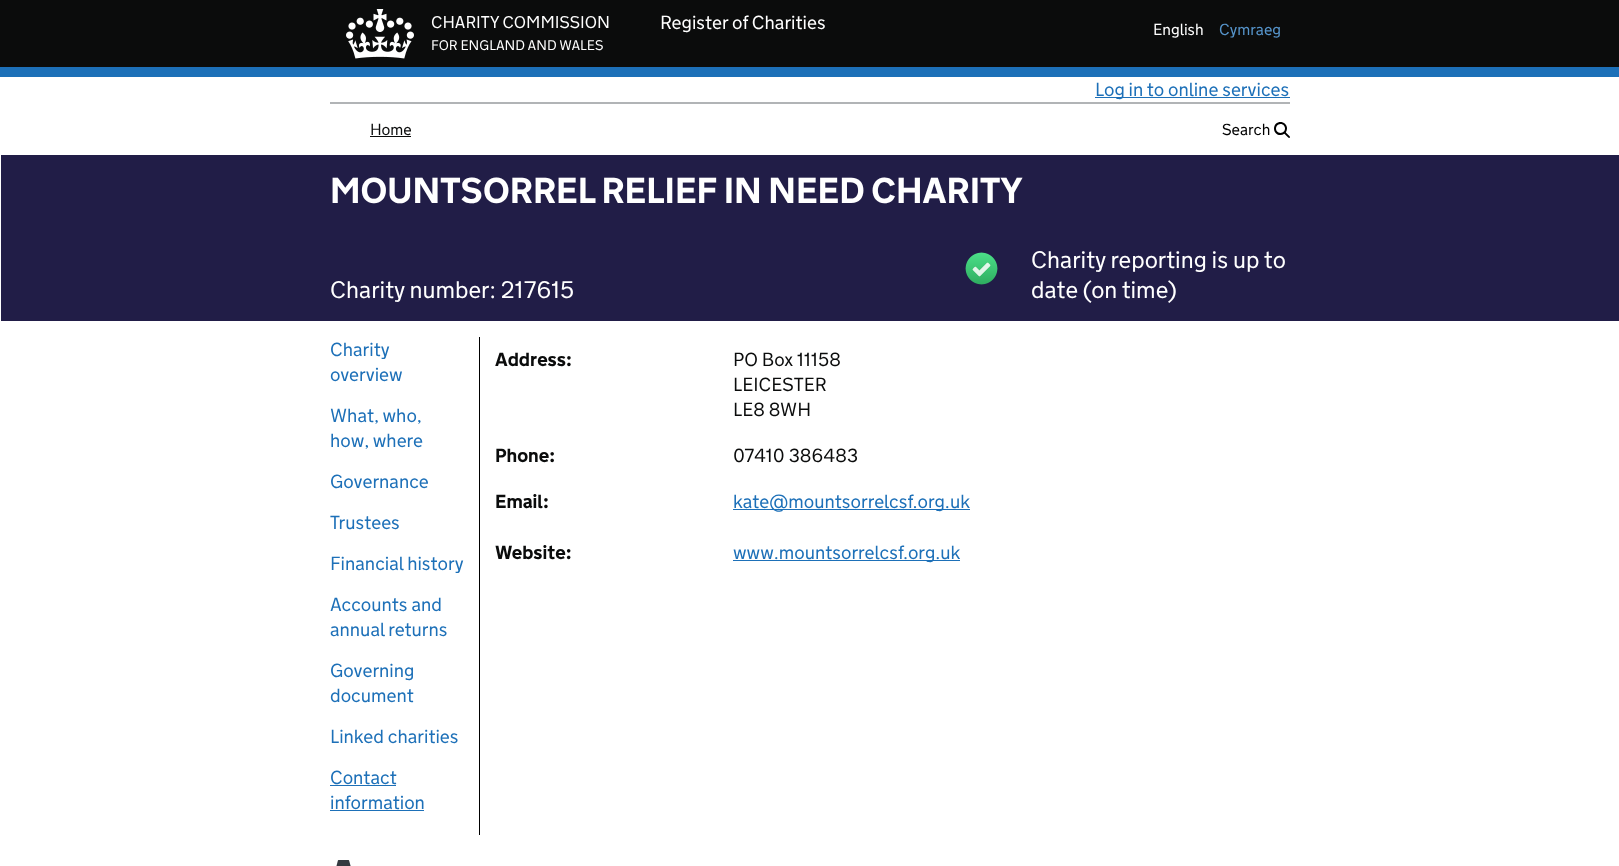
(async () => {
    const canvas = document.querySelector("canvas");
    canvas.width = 1619;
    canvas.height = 866;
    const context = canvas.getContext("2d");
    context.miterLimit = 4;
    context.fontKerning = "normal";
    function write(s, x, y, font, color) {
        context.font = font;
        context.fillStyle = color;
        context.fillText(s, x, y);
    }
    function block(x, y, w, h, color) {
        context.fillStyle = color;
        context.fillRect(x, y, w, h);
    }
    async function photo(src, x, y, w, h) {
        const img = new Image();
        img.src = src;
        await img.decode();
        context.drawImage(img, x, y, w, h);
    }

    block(0, 0, 1619, 866, "rgb(255, 255, 255)");
    block(0, 0, 1619, 67, "rgb(11, 12, 12)");
    block(0, 67, 1619, 10, "rgb(29, 112, 184)");
    await photo("media/1.png", 346, 9, 68, 50);
    write("CHARITY COMMISSION", 431, 28, "300 17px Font", "rgb(255, 255, 255)");
    write("FOR ENGLAND AND WALES", 431, 50, "300 14px Font", "rgb(255, 255, 255)");
    write("Register of Charities", 660, 29, "300 19px Font", "rgb(255, 255, 255)");
    write("English", 1153, 35, "300 16px Font", "rgb(255, 255, 255)");
    write("Cymraeg", 1219, 35, "300 16px Font", "rgb(86, 148, 202)");
    block(330, 102, 960, 2, "rgb(177, 180, 182)");
    block(1095, 97, 195, 1, "rgb(29, 112, 184)");
    write("Log in to online services", 1095, 96, "300 19px Font", "rgb(29, 112, 184)");
    write("Home", 370, 135, "300 16px Font", "rgb(11, 12, 12)");
    block(370, 136, 41, 1, "rgb(11, 12, 12)");
    write("Search", 1222, 135, "300 16px Font", "rgb(0, 0, 0)");
    await photo("media/2.png", 1274, 122, 16, 16);
    block(1, 155, 1618, 166, "rgb(33, 29, 71)");
    write("MOUNTSORREL RELIEF IN NEED CHARITY", 330, 203, "bold 36px Font", "rgb(255, 255, 255)");
    write("Charity number: 217615", 330, 298, "300 24px Font", "rgb(255, 255, 255)");
    await photo("media/3.png", 965, 252, 33, 33);
    write("Charity reporting is up to", 1031, 268, "300 24px Font", "rgb(255, 255, 255)");
    write("date (on time)", 1031, 298, "300 24px Font", "rgb(255, 255, 255)");
    block(479, 337, 1, 498, "rgb(0, 0, 0)");
    write("Charity", 330, 356, "300 19px Font", "rgb(29, 112, 184)");
    write("overview", 330, 381, "300 19px Font", "rgb(29, 112, 184)");
    write("What, who,", 330, 422, "300 19px Font", "rgb(29, 112, 184)");
    write("how, where", 330, 447, "300 19px Font", "rgb(29, 112, 184)");
    write("Governance", 330, 488, "300 19px Font", "rgb(29, 112, 184)");
    write("Trustees", 330, 529, "300 19px Font", "rgb(29, 112, 184)");
    write("Financial history", 330, 570, "300 19px Font", "rgb(29, 112, 184)");
    write("Accounts and", 330, 611, "300 19px Font", "rgb(29, 112, 184)");
    write("annual returns", 330, 636, "300 19px Font", "rgb(29, 112, 184)");
    write("Governing", 330, 677, "300 19px Font", "rgb(29, 112, 184)");
    write("document", 330, 702, "300 19px Font", "rgb(29, 112, 184)");
    write("Linked charities", 330, 743, "300 19px Font", "rgb(29, 112, 184)");
    write("Contact", 330, 784, "300 19px Font", "rgb(29, 112, 184)");
    block(330, 785, 66, 1, "rgb(29, 112, 184)");
    write("information", 330, 809, "300 19px Font", "rgb(29, 112, 184)");
    block(330, 810, 94, 1, "rgb(29, 112, 184)");
    write("Address:", 495, 366, "bold 19px Font", "rgb(11, 12, 12)");
    write("PO Box 11158", 733, 366, "300 19px Font", "rgb(11, 12, 12)");
    write("LEICESTER", 733, 391, "300 19px Font", "rgb(11, 12, 12)");
    write("LE8 8WH", 733, 416, "300 19px Font", "rgb(11, 12, 12)");
    write("Phone:", 495, 462, "bold 19px Font", "rgb(11, 12, 12)");
    write("07410 386483", 733, 462, "300 19px Font", "rgb(11, 12, 12)");
    write("Email:", 495, 508, "bold 19px Font", "rgb(11, 12, 12)");
    block(733, 509, 237, 1, "rgb(29, 112, 184)");
    write("kate@mountsorrelcsf.org.uk", 733, 508, "300 19px Font", "rgb(29, 112, 184)");
    write("Website:", 495, 559, "bold 19px Font", "rgb(11, 12, 12)");
    block(733, 560, 227, 1, "rgb(29, 112, 184)");
    write("www.mountsorrelcsf.org.uk", 733, 559, "300 19px Font", "rgb(29, 112, 184)");
    await photo("media/4.png", 336, 860, 15, 6);
})();
